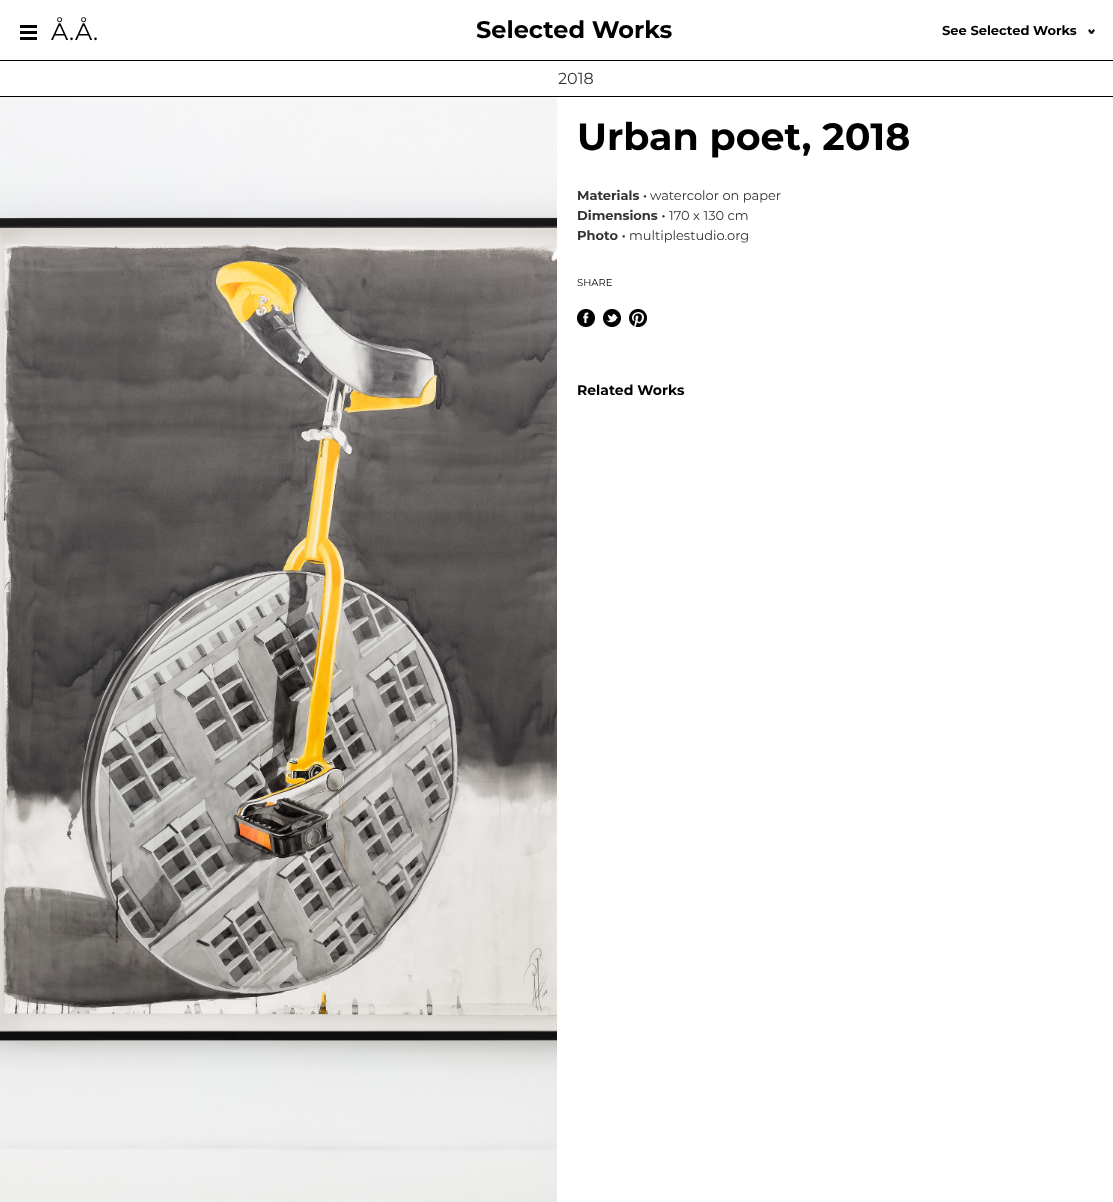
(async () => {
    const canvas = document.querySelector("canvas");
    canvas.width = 1113;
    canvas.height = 1202;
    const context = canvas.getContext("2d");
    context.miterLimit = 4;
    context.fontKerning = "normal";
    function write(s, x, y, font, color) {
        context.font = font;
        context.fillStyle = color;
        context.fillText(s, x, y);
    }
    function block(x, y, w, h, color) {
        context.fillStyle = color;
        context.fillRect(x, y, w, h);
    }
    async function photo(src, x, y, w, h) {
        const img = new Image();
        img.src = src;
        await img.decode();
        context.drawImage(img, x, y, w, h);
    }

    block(0, 0, 1113, 1202, "rgb(255, 255, 255)");
    block(0, 60, 1113, 1, "rgb(0, 0, 0)");
    await photo("media/1.png", 20, 25, 17, 15);
    write("Å.Å.", 51, 40, "24px Montserrat", "rgb(0, 0, 0)");
    write("Selected Works", 476, 38, "bold 24px Montserrat", "rgb(0, 0, 0)");
    write("See Selected Works", 942, 35, "bold 13px Montserrat", "rgb(0, 0, 0)");
    await photo("media/2.png", 1088, 29, 7, 5);
    block(0, 96, 1113, 1, "rgb(0, 0, 0)");
    write("2018", 558, 84, "16px Montserrat", "rgb(51, 51, 51)");
    await photo("media/3.png", 0, 97, 557, 1105);
    write("Urban poet, 2018", 577, 150, "bold 38px Montserrat", "rgb(0, 0, 0)");
    write("Materials ·", 577, 200, "bold 13px Montserrat", "rgb(51, 51, 51)");
    write("watercolor on paper", 650, 200, "13px Montserrat", "rgb(51, 51, 51)");
    write("Dimensions ·", 577, 220, "bold 13px Montserrat", "rgb(51, 51, 51)");
    write("170 x 130 cm", 669, 220, "13px Montserrat", "rgb(51, 51, 51)");
    write("Photo ·", 577, 240, "bold 13px Montserrat", "rgb(51, 51, 51)");
    write("multiplestudio.org", 629, 240, "13px Montserrat", "rgb(51, 51, 51)");
    write("SHARE", 577, 286, "10px Montserrat", "rgb(0, 0, 0)");
    await photo("media/4.png", 577, 309, 18, 18);
    await photo("media/5.png", 603, 309, 18, 18);
    await photo("media/6.png", 629, 309, 18, 18);
    write("Related Works", 577, 395, "bold 14px Montserrat", "rgb(0, 0, 0)");
})();
